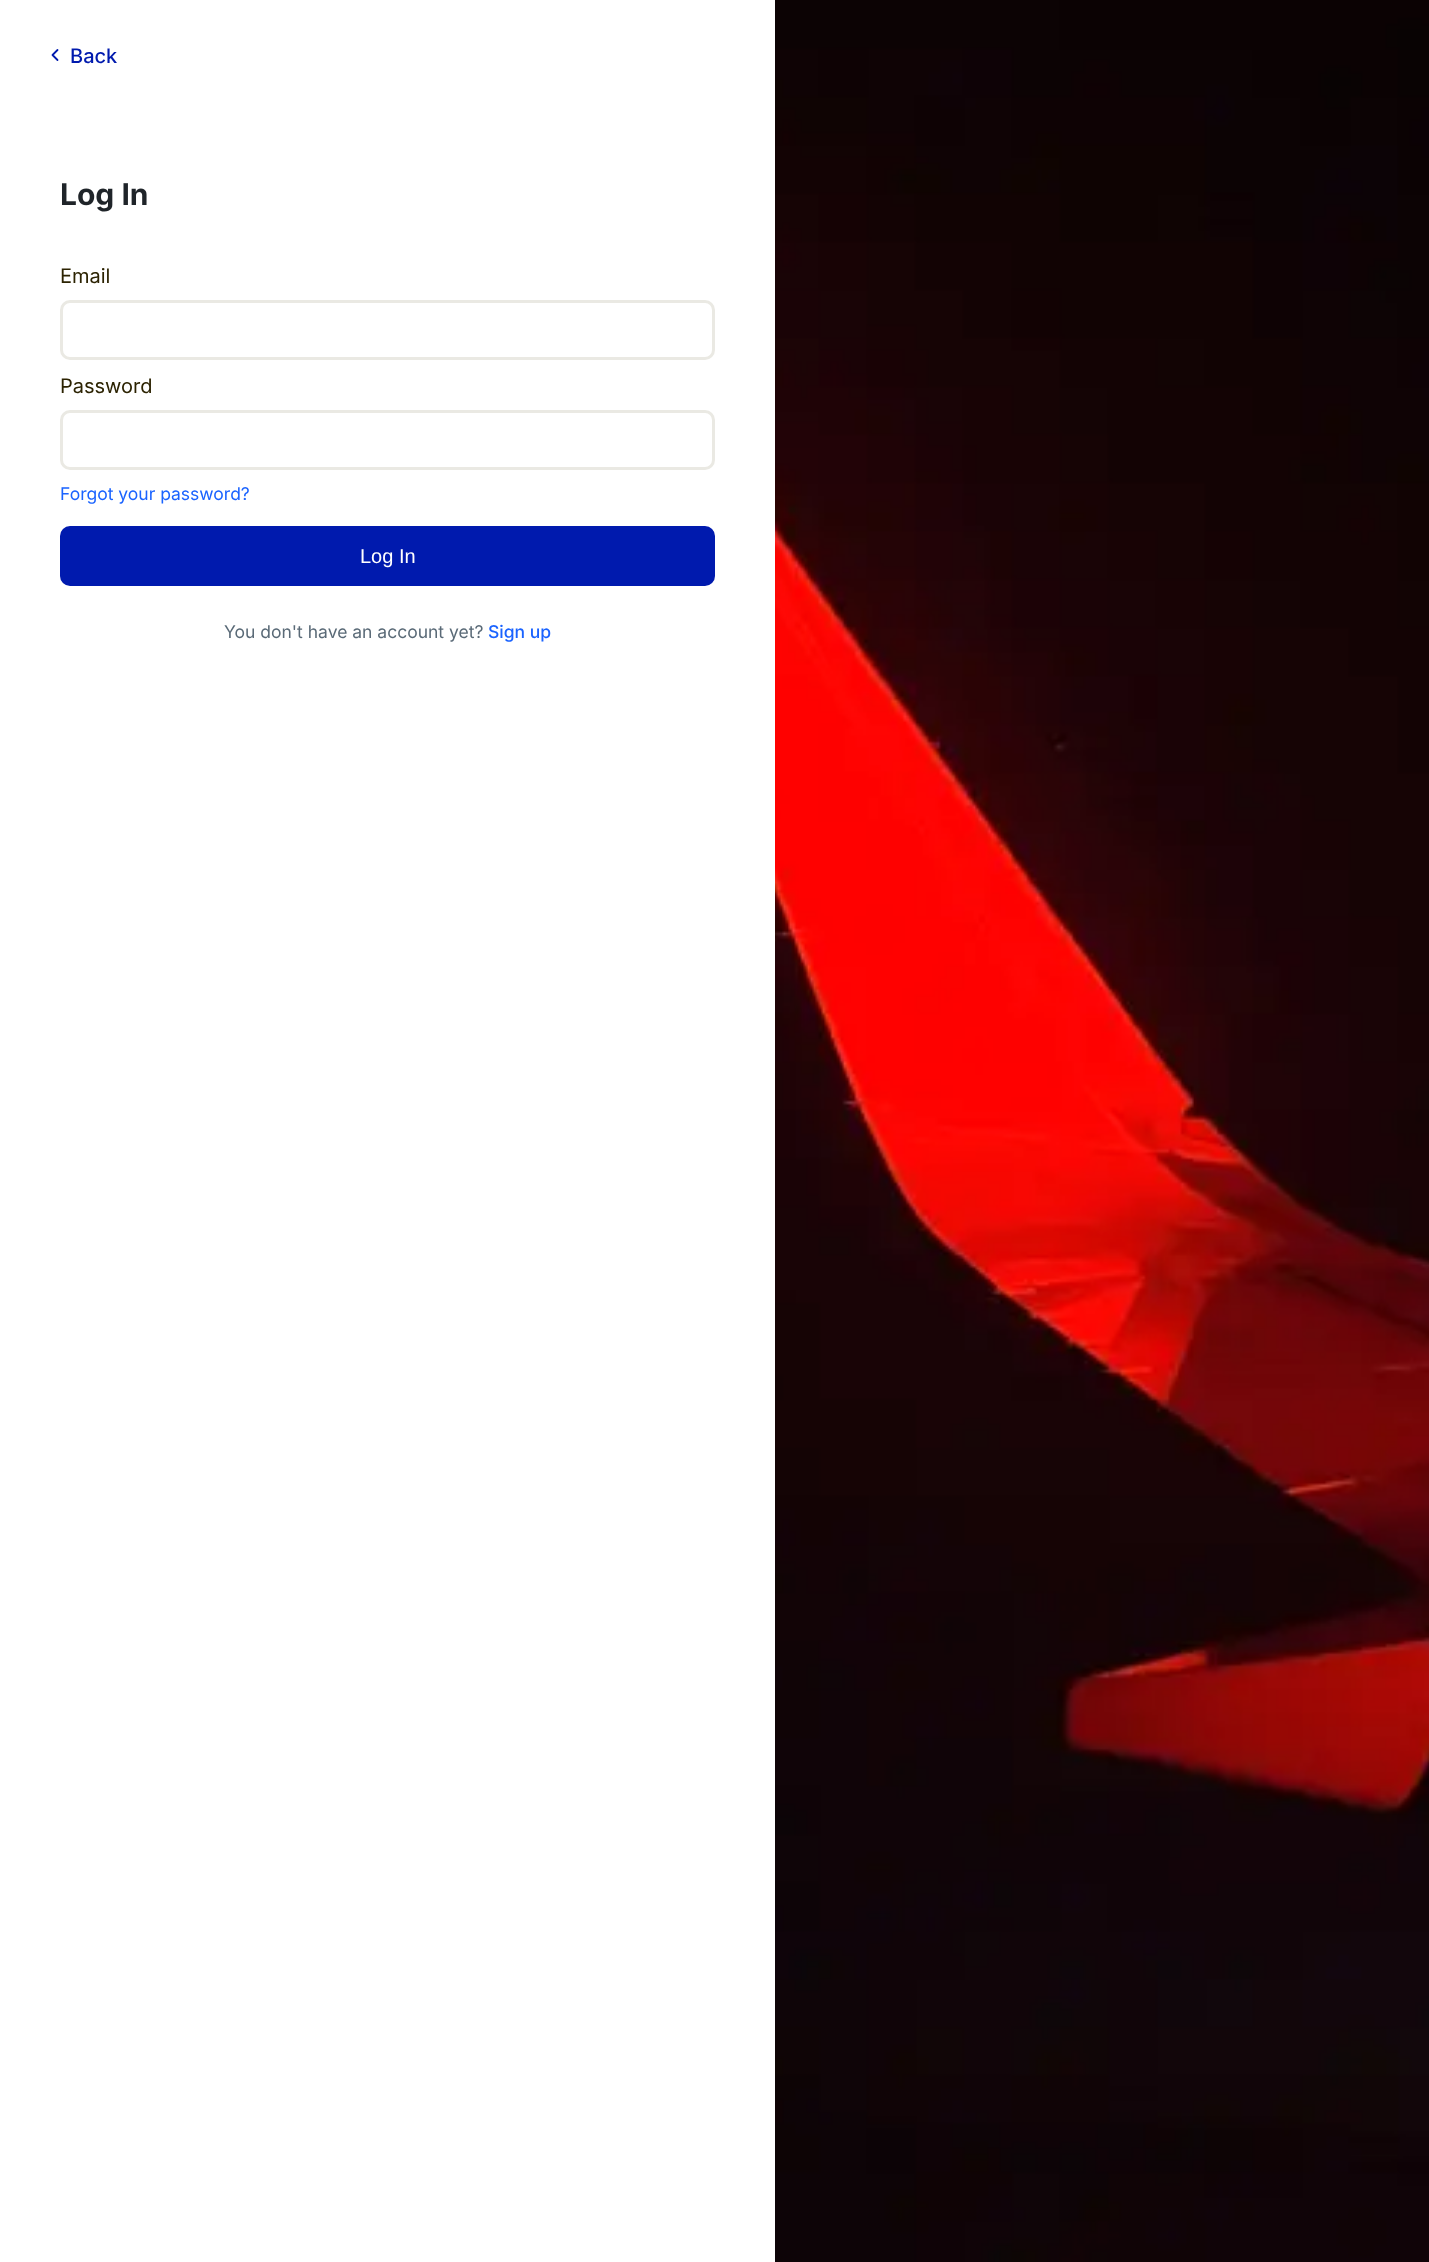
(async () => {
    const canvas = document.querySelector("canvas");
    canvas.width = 1429;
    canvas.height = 2262;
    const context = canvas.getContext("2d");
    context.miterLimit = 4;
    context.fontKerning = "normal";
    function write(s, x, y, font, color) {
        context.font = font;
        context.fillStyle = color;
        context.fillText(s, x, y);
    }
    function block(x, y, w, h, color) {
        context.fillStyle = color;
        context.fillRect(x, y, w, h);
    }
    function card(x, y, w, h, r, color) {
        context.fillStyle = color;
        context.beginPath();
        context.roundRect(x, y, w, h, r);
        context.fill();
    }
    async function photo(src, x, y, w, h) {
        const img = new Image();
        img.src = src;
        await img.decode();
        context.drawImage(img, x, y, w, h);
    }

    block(0, 0, 1429, 2262, "rgb(255, 255, 255)");
    context.beginPath();
    context.moveTo(57.5, 50);
    context.lineTo(52.5, 55);
    context.lineTo(57.5, 60);
    context.strokeStyle = "rgb(0, 26, 174)";
    context.lineWidth = 1.8;
    context.lineCap = "round";
    context.lineJoin = "round";
    context.stroke();
    write("Back", 70, 63, "500 20px Inter", "rgb(0, 26, 174)");
    write("Log In", 60, 205, "bold 30px Inter", "rgb(31, 36, 41)");
    write("Email", 60, 283, "20px Inter", "rgb(44, 35, 2)");
    context.beginPath();
    context.roundRect(61.5, 301.5, 652, 57, 8.5);
    context.strokeStyle = "rgb(234, 233, 227)";
    context.lineWidth = 3;
    context.lineJoin = "miter";
    context.stroke();
    write("Password", 60, 393, "20px Inter", "rgb(44, 35, 2)");
    context.beginPath();
    context.roundRect(61.5, 411.5, 652, 57, 8.5);
    context.stroke();
    write("Forgot your password?", 60, 500, "17.5px Inter", "rgb(26, 99, 255)");
    card(60, 526, 655, 60, 10, "rgb(0, 26, 174)");
    write("Log In", 360, 563, "20px Liberation Sans", "rgb(255, 255, 255)");
    write("You don't have an account yet?", 224, 638, "17.5px Inter", "rgb(90, 106, 119)");
    write("Sign up", 488, 638, "500 17.5px Inter", "rgb(26, 99, 255)");
    await photo("media/1.png", 775, 0, 654, 2262);
})();
